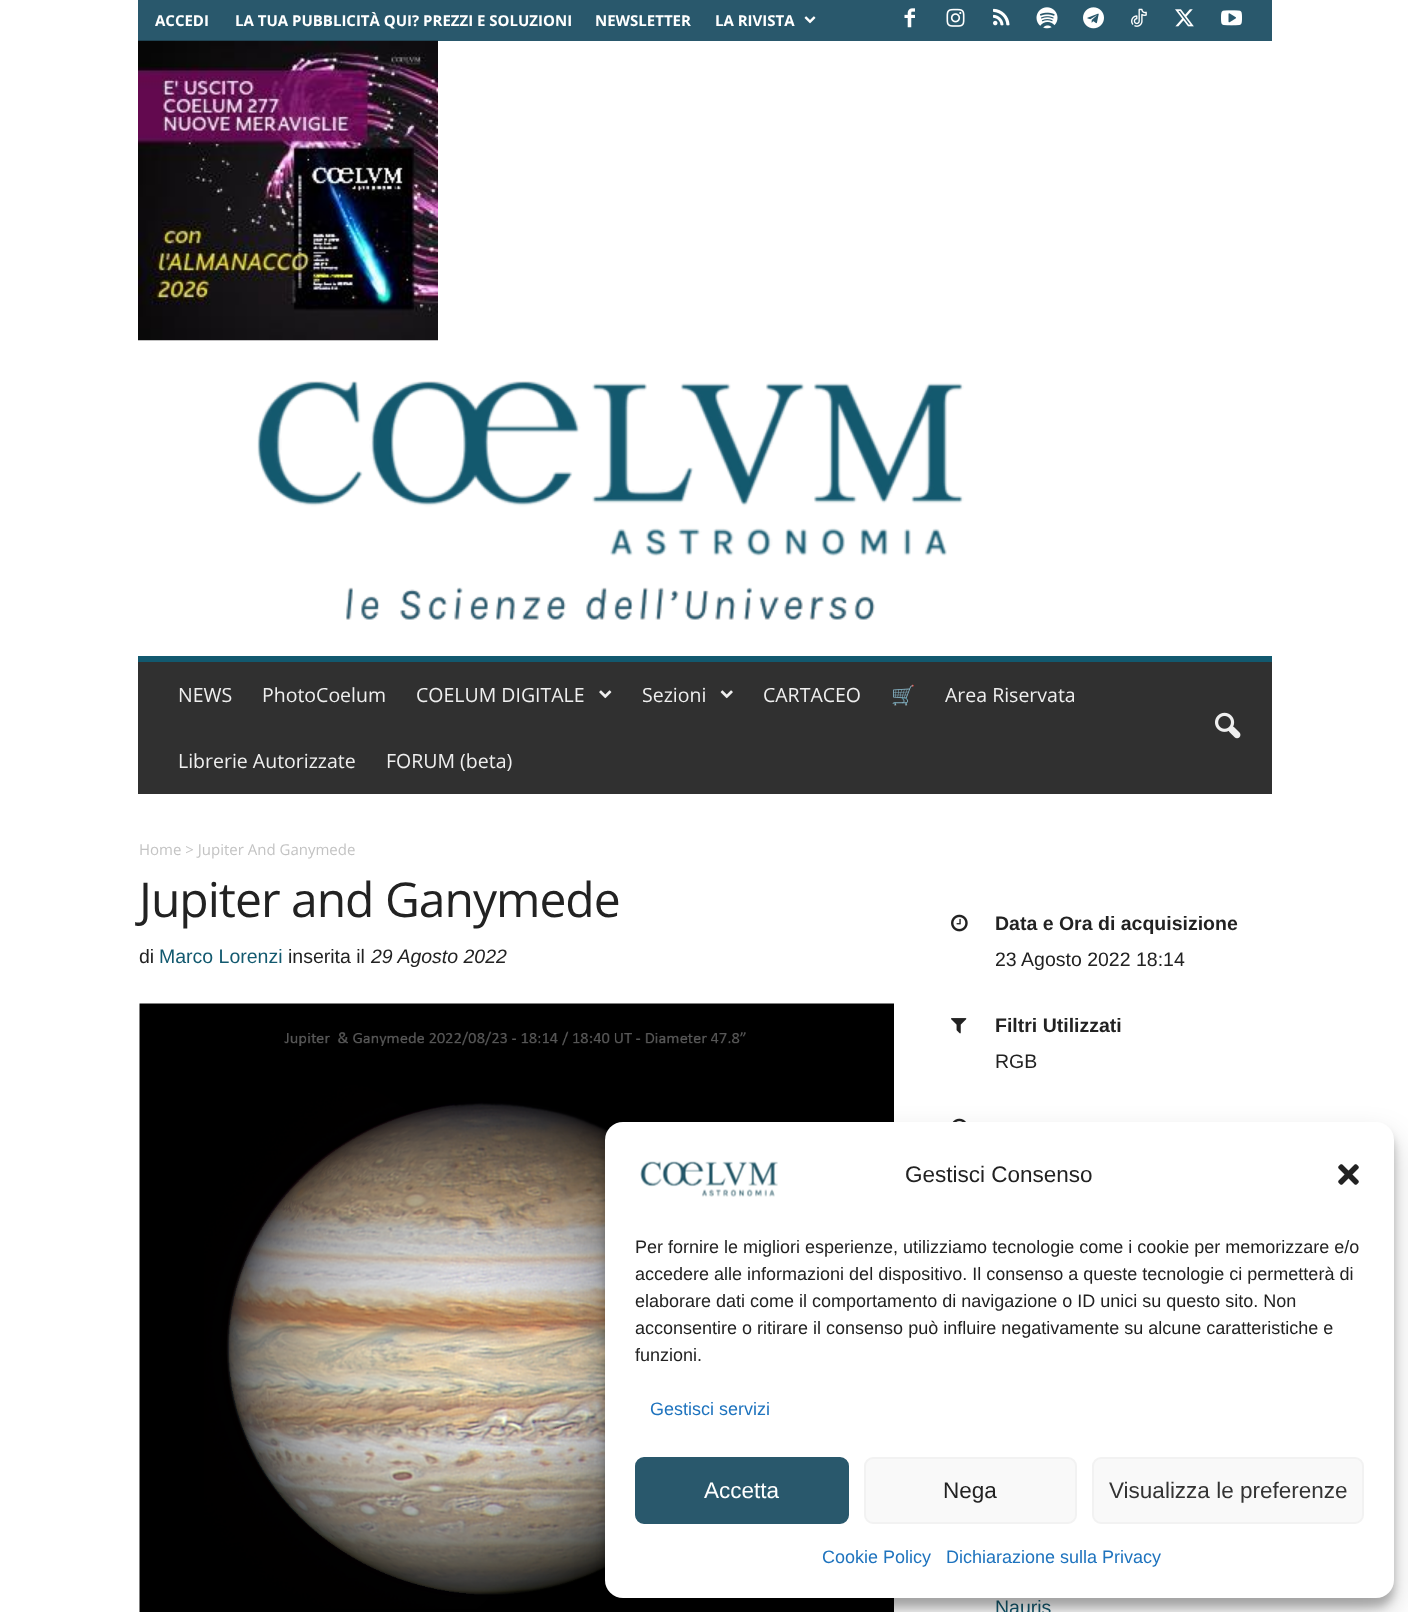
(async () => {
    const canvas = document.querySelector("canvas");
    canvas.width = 1408;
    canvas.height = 1612;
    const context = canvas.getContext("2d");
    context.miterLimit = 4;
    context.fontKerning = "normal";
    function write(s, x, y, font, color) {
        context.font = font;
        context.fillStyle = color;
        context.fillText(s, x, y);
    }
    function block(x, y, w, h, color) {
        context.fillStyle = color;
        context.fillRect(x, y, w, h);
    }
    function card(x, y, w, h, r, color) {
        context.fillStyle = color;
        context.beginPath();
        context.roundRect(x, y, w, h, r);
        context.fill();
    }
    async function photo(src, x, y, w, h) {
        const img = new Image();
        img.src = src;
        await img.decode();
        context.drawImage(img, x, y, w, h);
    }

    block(0, 0, 1408, 1612, "rgb(255, 255, 255)");
    block(138, 0, 1134, 41, "rgb(41, 88, 108)");
    write("ACCEDI", 155, 26, "bold 15px Open Sans", "rgb(255, 255, 255)");
    write("LA TUA PUBBLICITÀ QUI? PREZZI E SOLUZIONI", 235, 26, "bold 15px Open Sans", "rgb(255, 255, 255)");
    write("NEWSLETTER", 595, 26, "bold 15px Open Sans", "rgb(255, 255, 255)");
    write("LA RIVISTA", 715, 26, "bold 15px Open Sans", "rgb(255, 255, 255)");
    await photo("media/1.png", 804, 16, 12, 8);
    await photo("media/2.png", 904, 8, 11, 20);
    await photo("media/3.png", 946, 8, 19, 19);
    await photo("media/4.png", 993, 8, 17, 18);
    await photo("media/5.png", 1036, 7, 22, 22);
    await photo("media/6.png", 1083, 7, 21, 22);
    await photo("media/7.png", 1131, 8, 16, 19);
    await photo("media/8.png", 1175, 9, 19, 18);
    await photo("media/9.png", 1221, 10, 21, 16);
    await photo("media/10.png", 138, 40, 300, 301);
    await photo("media/11.png", 257, 381, 707, 239);
    block(138, 662, 1134, 132, "rgb(48, 48, 48)");
    block(138, 656, 1134, 6, "rgb(18, 89, 111)");
    write("NEWS", 178, 702, "19.5px Open Sans", "rgb(239, 239, 239)");
    write("PhotoCoelum", 262, 702, "19.5px Open Sans", "rgb(239, 239, 239)");
    write("COELUM DIGITALE", 416, 702, "19.5px Open Sans", "rgb(239, 239, 239)");
    await photo("media/12.png", 599, 690, 13, 9);
    write("Sezioni", 642, 702, "19.5px Open Sans", "rgb(239, 239, 239)");
    await photo("media/13.png", 720, 690, 13, 9);
    write("CARTACEO", 763, 702, "19.5px Open Sans", "rgb(239, 239, 239)");
    write("🛒", 891, 702, "19.5px Noto Color Emoji", "rgb(239, 239, 239)");
    write("Area Riservata", 945, 702, "19.5px Open Sans", "rgb(239, 239, 239)");
    write("Librerie Autorizzate", 178, 768, "19.5px Open Sans", "rgb(239, 239, 239)");
    write("FORUM (beta)", 386, 768, "19.5px Open Sans", "rgb(239, 239, 239)");
    await photo("media/14.png", 1215, 712, 26, 27);
    write("Home > Jupiter And Ganymede", 139, 855, "15px Open Sans", "rgb(195, 195, 195)");
    context.letterSpacing = "-1px";
    write("Jupiter and Ganymede", 139, 917, "48px Open Sans", "rgb(34, 34, 34)");
    context.letterSpacing = "0px";
    write("di", 139, 963, "19.5px Liberation Sans", "rgb(34, 34, 34)");
    write("Marco Lorenzi", 159, 963, "19.5px Liberation Sans", "rgb(18, 89, 111)");
    write("inserita il", 288, 963, "19.5px Liberation Sans", "rgb(34, 34, 34)");
    write("29 Agosto 2022", 371, 963, "italic 19.5px Liberation Sans", "rgb(34, 34, 34)");
    await photo("media/15.png", 139, 1003, 755, 609);
    await photo("media/16.png", 951, 914, 17, 18);
    write("Data e Ora di acquisizione", 995, 930, "bold 19.5px Liberation Sans", "rgb(34, 34, 34)");
    write("23 Agosto 2022 18:14", 995, 966, "19.5px Liberation Sans", "rgb(34, 34, 34)");
    await photo("media/17.png", 951, 1018, 16, 16);
    write("Filtri Utilizzati", 995, 1032, "bold 19.5px Liberation Sans", "rgb(34, 34, 34)");
    write("RGB", 995, 1068, "19.5px Liberation Sans", "rgb(34, 34, 34)");
    await photo("media/18.png", 952, 1118, 14, 4);
    write("Nauris", 995, 1614, "19.5px Liberation Sans", "rgb(18, 89, 111)");
    context.fillStyle = "rgba(0, 0, 0, 0.23)";
    context.filter = "blur(4.5px)";
    context.beginPath();
    context.roundRect(605, 1131, 789, 476, 18);
    context.fill();
    context.filter = "none";
    context.fillStyle = "rgba(0, 0, 0, 0.19)";
    context.filter = "blur(15px)";
    context.beginPath();
    context.roundRect(605, 1137, 789, 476, 18);
    context.fill();
    context.filter = "none";
    card(605, 1122, 789, 476, 18, "rgb(255, 255, 255)");
    await photo("media/19.png", 640, 1161, 138, 36);
    write("Gestisci Consenso", 905, 1182, "22.5px Liberation Sans", "rgb(34, 34, 34)");
    await photo("media/20.png", 1338, 1164, 21, 21);
    write("Per fornire le migliori esperienze, utilizziamo tecnologie come i cookie per memorizzare e/o", 635, 1253, "18px Liberation Sans", "rgb(34, 34, 34)");
    write("accedere alle informazioni del dispositivo. Il consenso a queste tecnologie ci permetterà di", 635, 1280, "18px Liberation Sans", "rgb(34, 34, 34)");
    write("elaborare dati come il comportamento di navigazione o ID unici su questo sito. Non", 635, 1307, "18px Liberation Sans", "rgb(34, 34, 34)");
    write("acconsentire o ritirare il consenso può influire negativamente su alcune caratteristiche e", 635, 1334, "18px Liberation Sans", "rgb(34, 34, 34)");
    write("funzioni.", 635, 1361, "18px Liberation Sans", "rgb(34, 34, 34)");
    write("Gestisci servizi", 650, 1415, "18px Liberation Sans", "rgb(30, 115, 190)");
    context.fillStyle = "rgb(41, 88, 108)";
    context.beginPath();
    context.roundRect(636, 1458, 212, 65, 8);
    context.fill();
    context.strokeStyle = "rgb(41, 88, 108)";
    context.lineWidth = 2;
    context.stroke();
    write("Accetta", 704, 1498, "22.5px Liberation Sans", "rgb(255, 255, 255)");
    context.fillStyle = "rgb(249, 249, 249)";
    context.beginPath();
    context.roundRect(865, 1458, 211, 65, 8);
    context.fill();
    context.strokeStyle = "rgb(242, 242, 242)";
    context.stroke();
    write("Nega", 943, 1498, "22.5px Liberation Sans", "rgb(34, 34, 34)");
    context.fillStyle = "rgb(249, 249, 249)";
    context.beginPath();
    context.roundRect(1093, 1458, 270, 65, 8);
    context.fill();
    context.stroke();
    write("Visualizza le preferenze", 1109, 1498, "22.5px Liberation Sans", "rgb(51, 51, 51)");
    write("Cookie Policy", 822, 1563, "18px Liberation Sans", "rgb(30, 115, 190)");
    write("Dichiarazione sulla Privacy", 946, 1563, "18px Liberation Sans", "rgb(30, 115, 190)");
})();
